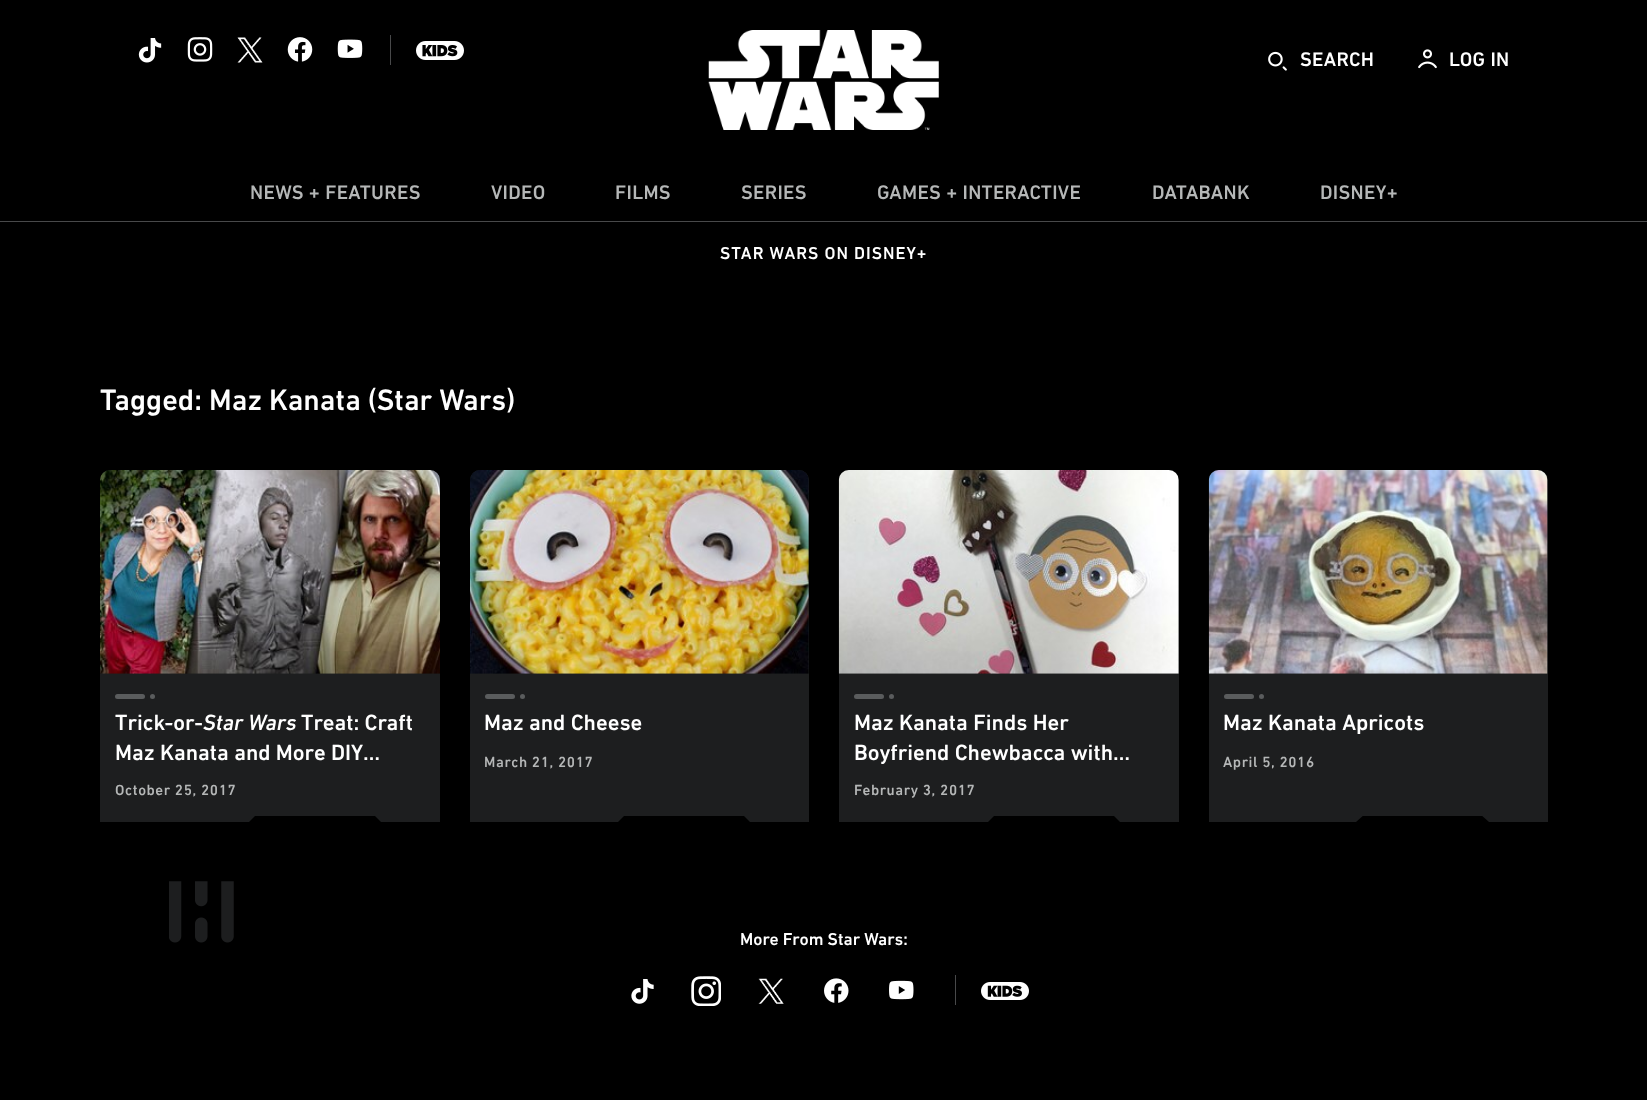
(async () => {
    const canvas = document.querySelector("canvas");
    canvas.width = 1647;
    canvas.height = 1100;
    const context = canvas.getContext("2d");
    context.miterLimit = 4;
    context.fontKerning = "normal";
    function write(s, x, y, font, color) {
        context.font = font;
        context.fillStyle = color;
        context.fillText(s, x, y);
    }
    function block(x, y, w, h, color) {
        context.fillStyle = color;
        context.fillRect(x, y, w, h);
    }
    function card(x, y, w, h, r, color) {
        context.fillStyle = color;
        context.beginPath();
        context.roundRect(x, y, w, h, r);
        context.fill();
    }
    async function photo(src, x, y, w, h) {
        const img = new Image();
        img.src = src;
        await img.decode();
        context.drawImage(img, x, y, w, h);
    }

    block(0, 0, 1647, 1100, "rgb(0, 0, 0)");
    await photo("media/1.png", 138, 38, 24, 25);
    await photo("media/2.png", 187, 37, 26, 25);
    await photo("media/3.png", 237, 37, 26, 26);
    await photo("media/4.png", 287, 37, 26, 25);
    await photo("media/5.png", 337, 39, 26, 19);
    block(390, 35, 1, 30, "rgb(72, 73, 74)");
    await photo("media/6.png", 416, 41, 48, 19);
    await photo("media/7.png", 708, 30, 231, 100);
    await photo("media/8.png", 1268, 51, 19, 20);
    context.letterSpacing = "0.3px";
    write("SEARCH", 1300, 66, "500 20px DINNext", "rgb(255, 255, 255)");
    await photo("media/9.png", 1418, 49, 19, 20);
    write("LOG IN", 1449, 66, "500 20px DINNext", "rgb(255, 255, 255)");
    block(0, 221, 1647, 1, "rgb(72, 73, 74)");
    write("NEWS + FEATURES", 250, 199, "500 20px DINNext", "rgb(181, 183, 183)");
    write("VIDEO", 491, 199, "500 20px DINNext", "rgb(181, 183, 183)");
    write("FILMS", 615, 199, "500 20px DINNext", "rgb(181, 183, 183)");
    write("SERIES", 741, 199, "500 20px DINNext", "rgb(181, 183, 183)");
    write("GAMES + INTERACTIVE", 877, 199, "500 20px DINNext", "rgb(181, 183, 183)");
    write("DATABANK", 1152, 199, "500 20px DINNext", "rgb(181, 183, 183)");
    write("DISNEY+", 1320, 199, "500 20px DINNext", "rgb(181, 183, 183)");
    context.letterSpacing = "1px";
    write("STAR WARS ON DISNEY+", 720, 259, "500 17.5px DINNext", "rgb(255, 255, 255)");
    context.letterSpacing = "0px";
    write("Tagged: Maz Kanata (Star Wars)", 100, 410, "500 30px 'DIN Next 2'", "rgb(255, 255, 255)");
    context.fillStyle = "rgb(29, 30, 31)";
    context.beginPath();
    context.roundRect(100, 470, 340, 346, [10, 10, 0, 0]);
    context.fill();
    await photo("media/10.png", 100, 470, 340, 204);
    card(115, 694, 30, 5, 2.5, "rgb(90, 92, 93)");
    context.beginPath();
    context.arc(152.5, 696.5, 2.5, 0, Math.PI * 2);
    context.fill();
    write("Trick-or-", 115, 730, "500 22.5px DINNext", "rgb(255, 255, 255)");
    write("Star Wars", 203, 730, "italic 500 22.5px DINNext", "rgb(255, 255, 255)");
    write("Treat: Craft", 301, 730, "500 22.5px DINNext", "rgb(255, 255, 255)");
    write("Maz Kanata and More DIY…", 115, 760, "500 22.5px DINNext", "rgb(255, 255, 255)");
    context.letterSpacing = "0.6px";
    write("October 25, 2017", 115, 795, "500 15px DINNext", "rgb(181, 183, 183)");
    context.fillStyle = "rgb(29, 30, 31)";
    context.beginPath();
    context.moveTo(100, 814);
    context.lineTo(100, 822);
    context.lineTo(249, 822);
    context.lineTo(257, 814);
    context.closePath();
    context.fill();
    context.beginPath();
    context.moveTo(440, 822);
    context.lineTo(381, 822);
    context.lineTo(373, 814);
    context.lineTo(440, 814);
    context.closePath();
    context.fill();
    context.beginPath();
    context.roundRect(470, 470, 339, 346, [10, 10, 0, 0]);
    context.fill();
    await photo("media/11.png", 470, 470, 339, 204);
    card(485, 694, 30, 5, 2.5, "rgb(90, 92, 93)");
    context.beginPath();
    context.arc(522.5, 696.5, 2.5, 0, Math.PI * 2);
    context.fill();
    context.letterSpacing = "0px";
    write("Maz and Cheese", 484, 730, "500 22.5px DINNext", "rgb(255, 255, 255)");
    context.letterSpacing = "0.6px";
    write("March 21, 2017", 484, 767, "500 15px DINNext", "rgb(181, 183, 183)");
    context.fillStyle = "rgb(29, 30, 31)";
    context.beginPath();
    context.moveTo(470, 814);
    context.lineTo(470, 822);
    context.lineTo(618, 822);
    context.lineTo(626, 814);
    context.closePath();
    context.fill();
    context.beginPath();
    context.moveTo(809, 814);
    context.lineTo(809, 822);
    context.lineTo(750, 822);
    context.lineTo(742, 814);
    context.closePath();
    context.fill();
    context.beginPath();
    context.roundRect(839, 470, 340, 346, [10, 10, 0, 0]);
    context.fill();
    await photo("media/12.png", 838, 470, 341, 204);
    card(854, 694, 30, 5, 2.5, "rgb(90, 92, 93)");
    context.beginPath();
    context.arc(891.5, 696.5, 2.5, 0, Math.PI * 2);
    context.fill();
    context.letterSpacing = "0px";
    write("Maz Kanata Finds Her", 854, 730, "500 22.5px DINNext", "rgb(255, 255, 255)");
    write("Boyfriend Chewbacca with…", 854, 760, "500 22.5px DINNext", "rgb(255, 255, 255)");
    context.letterSpacing = "0.6px";
    write("February 3, 2017", 854, 795, "500 15px DINNext", "rgb(181, 183, 183)");
    context.fillStyle = "rgb(29, 30, 31)";
    context.beginPath();
    context.moveTo(839, 814);
    context.lineTo(839, 822);
    context.lineTo(988, 822);
    context.lineTo(996, 814);
    context.closePath();
    context.fill();
    context.beginPath();
    context.moveTo(1179, 814);
    context.lineTo(1179, 822);
    context.lineTo(1120, 822);
    context.lineTo(1112, 814);
    context.closePath();
    context.fill();
    context.beginPath();
    context.roundRect(1209, 470, 339, 346, [10, 10, 0, 0]);
    context.fill();
    await photo("media/13.png", 1208, 470, 340, 204);
    card(1224, 694, 30, 5, 2.5, "rgb(90, 92, 93)");
    context.beginPath();
    context.arc(1261.5, 696.5, 2.5, 0, Math.PI * 2);
    context.fill();
    context.letterSpacing = "0px";
    write("Maz Kanata Apricots", 1223, 730, "500 22.5px DINNext", "rgb(255, 255, 255)");
    context.letterSpacing = "0.6px";
    write("April 5, 2016", 1223, 767, "500 15px DINNext", "rgb(181, 183, 183)");
    context.fillStyle = "rgb(29, 30, 31)";
    context.beginPath();
    context.moveTo(1209, 814);
    context.lineTo(1365, 814);
    context.lineTo(1356, 822);
    context.lineTo(1209, 822);
    context.lineTo(1209, 821);
    context.closePath();
    context.fill();
    context.beginPath();
    context.moveTo(1548, 814);
    context.lineTo(1548, 822);
    context.lineTo(1489, 822);
    context.lineTo(1480, 814);
    context.closePath();
    context.fill();
    await photo("media/14.png", 169, 881, 65, 62);
    context.letterSpacing = "0px";
    write("More From Star Wars:", 740, 945, "500 17.5px DINNext", "rgb(255, 255, 255)");
    await photo("media/15.png", 631, 979, 23, 25);
    await photo("media/16.png", 691, 976, 30, 30);
    await photo("media/17.png", 758, 978, 26, 26);
    await photo("media/18.png", 824, 978, 25, 25);
    await photo("media/19.png", 889, 980, 25, 20);
    await photo("media/20.png", 981, 982, 48, 18);
    block(955, 975, 1, 30, "rgb(72, 73, 74)");
})();
